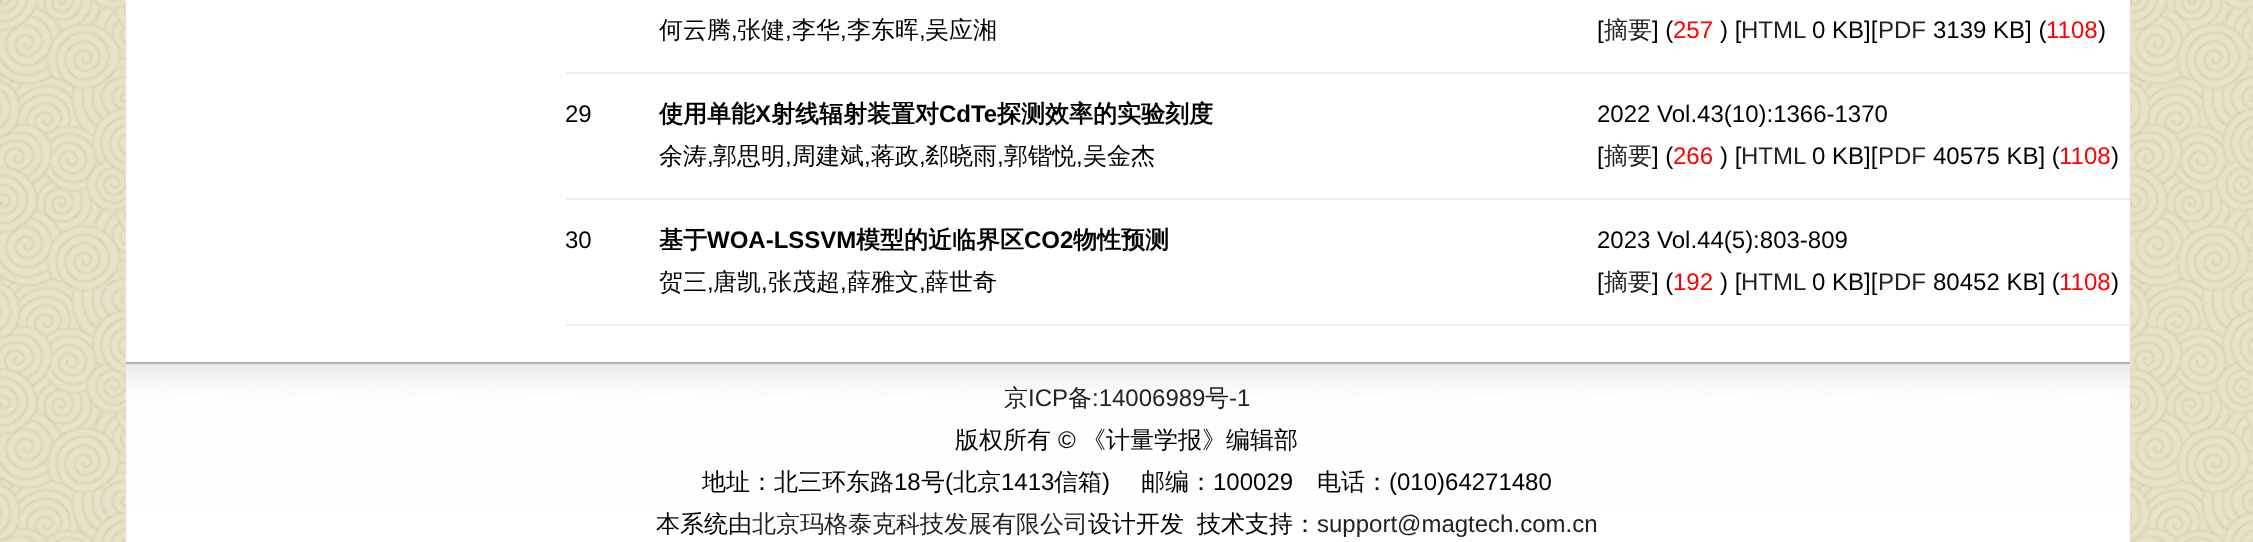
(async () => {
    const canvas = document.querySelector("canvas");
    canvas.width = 2253;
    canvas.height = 542;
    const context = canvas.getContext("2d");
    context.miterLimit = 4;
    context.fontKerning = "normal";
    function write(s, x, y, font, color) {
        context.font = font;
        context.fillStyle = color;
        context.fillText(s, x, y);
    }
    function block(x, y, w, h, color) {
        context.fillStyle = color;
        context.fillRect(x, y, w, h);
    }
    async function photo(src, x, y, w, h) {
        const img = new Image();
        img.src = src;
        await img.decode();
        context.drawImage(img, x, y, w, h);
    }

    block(0, 0, 2253, 542, "rgb(255, 255, 255)");
    await photo("media/1.png", 0, 0, 2253, 542);
    block(126, 0, 2004, 362, "rgb(255, 255, 255)");
    write("何云腾", 659, 38, "500 24px WenQuanYi Zen Hei", "rgb(0, 0, 0)");
    write(",", 731, 38, "24px Liberation Sans", "rgb(0, 0, 0)");
    write("张健", 737, 38, "500 24px WenQuanYi Zen Hei", "rgb(0, 0, 0)");
    write(",", 785, 38, "24px Liberation Sans", "rgb(0, 0, 0)");
    write("李华", 792, 38, "500 24px WenQuanYi Zen Hei", "rgb(0, 0, 0)");
    write(",", 840, 38, "24px Liberation Sans", "rgb(0, 0, 0)");
    write("李东晖", 847, 38, "500 24px WenQuanYi Zen Hei", "rgb(0, 0, 0)");
    write(",", 919, 38, "24px Liberation Sans", "rgb(0, 0, 0)");
    write("吴应湘", 925, 38, "500 24px WenQuanYi Zen Hei", "rgb(0, 0, 0)");
    write("[", 1597, 38, "24px Liberation Sans", "rgb(0, 0, 0)");
    write("摘要", 1604, 38, "500 24px WenQuanYi Zen Hei", "rgb(34, 34, 34)");
    write("] (", 1652, 38, "24px Liberation Sans", "rgb(0, 0, 0)");
    write("257", 1673, 38, "24px Liberation Sans", "rgb(255, 0, 0)");
    write(") [", 1720, 38, "24px Liberation Sans", "rgb(0, 0, 0)");
    write("HTML", 1741, 38, "24px Liberation Sans", "rgb(34, 34, 34)");
    write("0 KB][", 1812, 38, "24px Liberation Sans", "rgb(0, 0, 0)");
    write("PDF", 1878, 38, "24px Liberation Sans", "rgb(34, 34, 34)");
    write("3139 KB] (", 1933, 38, "24px Liberation Sans", "rgb(0, 0, 0)");
    write("1108", 2046, 38, "24px Liberation Sans", "rgb(255, 0, 0)");
    write(")", 2098, 38, "24px Liberation Sans", "rgb(0, 0, 0)");
    block(566, 72, 1564, 2, "rgb(238, 238, 238)");
    write("29", 565, 122, "24px Liberation Sans", "rgb(0, 0, 0)");
    write("使用单能", 659, 122, "bold 24px WenQuanYi Zen Hei", "rgb(0, 0, 0)");
    write("X", 755, 122, "bold 24px Liberation Sans", "rgb(0, 0, 0)");
    write("射线辐射装置对", 771, 122, "bold 24px WenQuanYi Zen Hei", "rgb(0, 0, 0)");
    write("CdTe", 939, 122, "bold 24px Liberation Sans", "rgb(0, 0, 0)");
    write("探测效率的实验刻度", 997, 122, "bold 24px WenQuanYi Zen Hei", "rgb(0, 0, 0)");
    write("2022 Vol.43(10):1366-1370", 1597, 122, "24px Liberation Sans", "rgb(0, 0, 0)");
    write("余涛", 659, 164, "500 24px WenQuanYi Zen Hei", "rgb(0, 0, 0)");
    write(",", 707, 164, "24px Liberation Sans", "rgb(0, 0, 0)");
    write("郭思明", 713, 164, "500 24px WenQuanYi Zen Hei", "rgb(0, 0, 0)");
    write(",", 785, 164, "24px Liberation Sans", "rgb(0, 0, 0)");
    write("周建斌", 792, 164, "500 24px WenQuanYi Zen Hei", "rgb(0, 0, 0)");
    write(",", 864, 164, "24px Liberation Sans", "rgb(0, 0, 0)");
    write("蒋政", 871, 164, "500 24px WenQuanYi Zen Hei", "rgb(0, 0, 0)");
    write(",", 919, 164, "24px Liberation Sans", "rgb(0, 0, 0)");
    write("郄晓雨", 925, 164, "500 24px WenQuanYi Zen Hei", "rgb(0, 0, 0)");
    write(",", 997, 164, "24px Liberation Sans", "rgb(0, 0, 0)");
    write("郭锴悦", 1004, 164, "500 24px WenQuanYi Zen Hei", "rgb(0, 0, 0)");
    write(",", 1076, 164, "24px Liberation Sans", "rgb(0, 0, 0)");
    write("吴金杰", 1083, 164, "500 24px WenQuanYi Zen Hei", "rgb(0, 0, 0)");
    write("[", 1597, 164, "24px Liberation Sans", "rgb(0, 0, 0)");
    write("摘要", 1604, 164, "500 24px WenQuanYi Zen Hei", "rgb(34, 34, 34)");
    write("] (", 1652, 164, "24px Liberation Sans", "rgb(0, 0, 0)");
    write("266", 1673, 164, "24px Liberation Sans", "rgb(255, 0, 0)");
    write(") [", 1720, 164, "24px Liberation Sans", "rgb(0, 0, 0)");
    write("HTML", 1741, 164, "24px Liberation Sans", "rgb(34, 34, 34)");
    write("0 KB][", 1812, 164, "24px Liberation Sans", "rgb(0, 0, 0)");
    write("PDF", 1878, 164, "24px Liberation Sans", "rgb(34, 34, 34)");
    write("40575 KB] (", 1933, 164, "24px Liberation Sans", "rgb(0, 0, 0)");
    write("1108", 2059, 164, "24px Liberation Sans", "rgb(255, 0, 0)");
    write(")", 2111, 164, "24px Liberation Sans", "rgb(0, 0, 0)");
    block(566, 198, 1564, 2, "rgb(238, 238, 238)");
    write("30", 565, 248, "24px Liberation Sans", "rgb(0, 0, 0)");
    write("基于", 659, 248, "bold 24px WenQuanYi Zen Hei", "rgb(0, 0, 0)");
    write("WOA-LSSVM", 707, 248, "bold 24px Liberation Sans", "rgb(0, 0, 0)");
    write("模型的近临界区", 856, 248, "bold 24px WenQuanYi Zen Hei", "rgb(0, 0, 0)");
    write("CO2", 1024, 248, "bold 24px Liberation Sans", "rgb(0, 0, 0)");
    write("物性预测", 1073, 248, "bold 24px WenQuanYi Zen Hei", "rgb(0, 0, 0)");
    write("2023 Vol.44(5):803-809", 1597, 248, "24px Liberation Sans", "rgb(0, 0, 0)");
    write("贺三", 659, 290, "500 24px WenQuanYi Zen Hei", "rgb(0, 0, 0)");
    write(",", 707, 290, "24px Liberation Sans", "rgb(0, 0, 0)");
    write("唐凯", 713, 290, "500 24px WenQuanYi Zen Hei", "rgb(0, 0, 0)");
    write(",", 761, 290, "24px Liberation Sans", "rgb(0, 0, 0)");
    write("张茂超", 768, 290, "500 24px WenQuanYi Zen Hei", "rgb(0, 0, 0)");
    write(",", 840, 290, "24px Liberation Sans", "rgb(0, 0, 0)");
    write("薛雅文", 847, 290, "500 24px WenQuanYi Zen Hei", "rgb(0, 0, 0)");
    write(",", 919, 290, "24px Liberation Sans", "rgb(0, 0, 0)");
    write("薛世奇", 925, 290, "500 24px WenQuanYi Zen Hei", "rgb(0, 0, 0)");
    write("[", 1597, 290, "24px Liberation Sans", "rgb(0, 0, 0)");
    write("摘要", 1604, 290, "500 24px WenQuanYi Zen Hei", "rgb(34, 34, 34)");
    write("] (", 1652, 290, "24px Liberation Sans", "rgb(0, 0, 0)");
    write("192", 1673, 290, "24px Liberation Sans", "rgb(255, 0, 0)");
    write(") [", 1720, 290, "24px Liberation Sans", "rgb(0, 0, 0)");
    write("HTML", 1741, 290, "24px Liberation Sans", "rgb(34, 34, 34)");
    write("0 KB][", 1812, 290, "24px Liberation Sans", "rgb(0, 0, 0)");
    write("PDF", 1878, 290, "24px Liberation Sans", "rgb(34, 34, 34)");
    write("80452 KB] (", 1933, 290, "24px Liberation Sans", "rgb(0, 0, 0)");
    write("1108", 2059, 290, "24px Liberation Sans", "rgb(255, 0, 0)");
    write(")", 2111, 290, "24px Liberation Sans", "rgb(0, 0, 0)");
    block(566, 324, 1564, 2, "rgb(238, 238, 238)");
    await photo("media/2.png", 126, 362, 2004, 180);
    write("京", 1004, 406, "500 24px WenQuanYi Zen Hei", "rgb(34, 34, 34)");
    write("ICP", 1028, 406, "24px Liberation Sans", "rgb(34, 34, 34)");
    write("备", 1068, 406, "500 24px WenQuanYi Zen Hei", "rgb(34, 34, 34)");
    write(":14006989", 1092, 406, "24px Liberation Sans", "rgb(34, 34, 34)");
    write("号", 1205, 406, "500 24px WenQuanYi Zen Hei", "rgb(34, 34, 34)");
    write("-1", 1229, 406, "24px Liberation Sans", "rgb(34, 34, 34)");
    write("版权所有", 955, 448, "500 24px WenQuanYi Zen Hei", "rgb(0, 0, 0)");
    write("©", 1058, 448, "24px Liberation Sans", "rgb(0, 0, 0)");
    write("《计量学报》编辑部", 1082, 448, "500 24px WenQuanYi Zen Hei", "rgb(0, 0, 0)");
    write("地址：北三环东路", 702, 490, "500 24px WenQuanYi Zen Hei", "rgb(0, 0, 0)");
    write("18", 894, 490, "24px Liberation Sans", "rgb(0, 0, 0)");
    write("号", 921, 490, "500 24px WenQuanYi Zen Hei", "rgb(0, 0, 0)");
    write("(", 945, 490, "24px Liberation Sans", "rgb(0, 0, 0)");
    write("北京", 953, 490, "500 24px WenQuanYi Zen Hei", "rgb(0, 0, 0)");
    write("1413", 1001, 490, "24px Liberation Sans", "rgb(0, 0, 0)");
    write("信箱", 1054, 490, "500 24px WenQuanYi Zen Hei", "rgb(0, 0, 0)");
    write(")", 1102, 490, "24px Liberation Sans", "rgb(0, 0, 0)");
    write("邮编：", 1141, 490, "500 24px WenQuanYi Zen Hei", "rgb(0, 0, 0)");
    write("100029", 1213, 490, "24px Liberation Sans", "rgb(0, 0, 0)");
    write("电话：", 1317, 490, "500 24px WenQuanYi Zen Hei", "rgb(0, 0, 0)");
    write("(010)64271480", 1389, 490, "24px Liberation Sans", "rgb(0, 0, 0)");
    write("本系统由", 656, 532, "500 24px WenQuanYi Zen Hei", "rgb(0, 0, 0)");
    write("北京玛格泰克科技发展有限公司", 752, 532, "500 24px WenQuanYi Zen Hei", "rgb(34, 34, 34)");
    write("设计开发", 1088, 532, "500 24px WenQuanYi Zen Hei", "rgb(0, 0, 0)");
    write("技术支持：", 1197, 532, "500 24px WenQuanYi Zen Hei", "rgb(0, 0, 0)");
    write("support@magtech.com.cn", 1317, 532, "24px Liberation Sans", "rgb(34, 34, 34)");
})();
